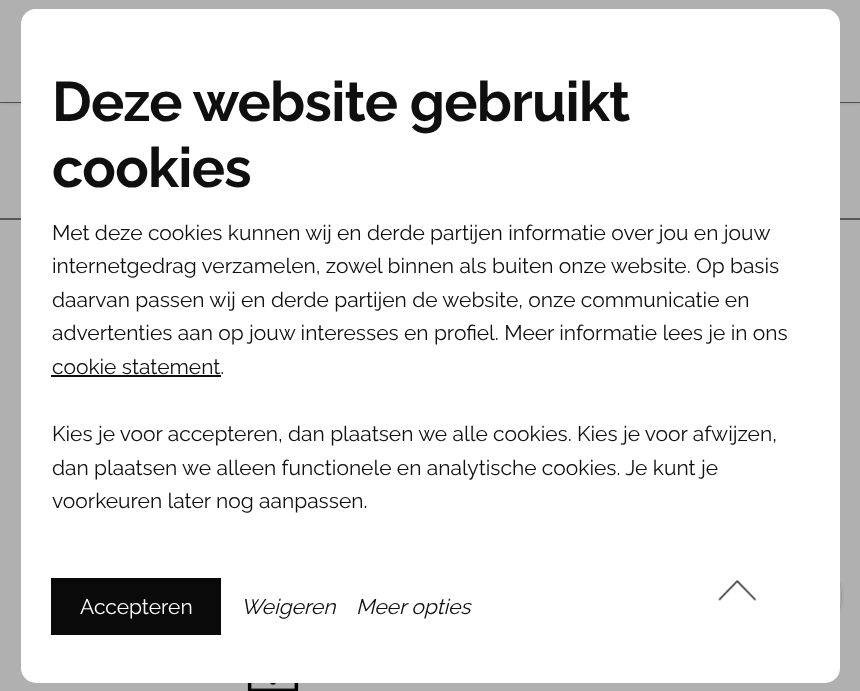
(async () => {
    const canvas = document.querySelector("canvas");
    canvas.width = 860;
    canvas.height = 691;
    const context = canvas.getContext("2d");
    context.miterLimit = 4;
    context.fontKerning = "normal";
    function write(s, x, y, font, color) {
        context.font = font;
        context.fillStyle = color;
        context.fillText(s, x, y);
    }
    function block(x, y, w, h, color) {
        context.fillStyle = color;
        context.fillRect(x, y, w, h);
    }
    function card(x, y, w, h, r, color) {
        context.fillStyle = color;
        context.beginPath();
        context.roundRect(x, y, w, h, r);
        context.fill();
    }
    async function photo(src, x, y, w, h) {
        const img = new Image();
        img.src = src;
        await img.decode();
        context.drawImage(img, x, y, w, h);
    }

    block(0, 0, 860, 691, "rgb(176, 176, 176)");
    block(0, 102, 860, 1, "rgb(88, 88, 88)");
    context.fillStyle = "rgba(0, 0, 0, 0.22)";
    context.filter = "blur(2px)";
    context.beginPath();
    context.rect(0, 0, 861, 102);
    context.fill();
    context.filter = "none";
    block(0, 0, 860, 102, "rgb(176, 176, 176)");
    block(0, 218, 860, 2, "rgb(88, 88, 88)");
    card(21, 9, 819, 674, 15, "rgb(255, 255, 255)");
    context.letterSpacing = "-0.75px";
    write("Deze website gebruikt", 52, 121, "bold 55.5px Raleway", "rgb(15, 15, 15)");
    write("cookies", 52, 187, "bold 55.5px Raleway", "rgb(15, 15, 15)");
    context.letterSpacing = "0px";
    write("Met deze cookies kunnen wij en derde partijen informatie over jou en jouw", 52, 240, "21px Raleway", "rgb(15, 15, 15)");
    write("internetgedrag verzamelen, zowel binnen als buiten onze website. Op basis", 52, 273, "21px Raleway", "rgb(15, 15, 15)");
    write("daarvan passen wij en derde partijen de website, onze communicatie en", 52, 307, "21px Raleway", "rgb(15, 15, 15)");
    write("advertenties aan op jouw interesses en profiel. Meer informatie lees je in ons", 52, 340, "21px Raleway", "rgb(15, 15, 15)");
    write("cookie statement.", 52, 374, "21px Raleway", "rgb(15, 15, 15)");
    block(51, 375, 170, 2, "rgb(15, 15, 15)");
    write("Kies je voor accepteren, dan plaatsen we alle cookies. Kies je voor afwijzen,", 52, 441, "21px Raleway", "rgb(15, 15, 15)");
    write("dan plaatsen we alleen functionele en analytische cookies. Je kunt je", 52, 475, "21px Raleway", "rgb(15, 15, 15)");
    write("voorkeuren later nog aanpassen.", 52, 508, "21px Raleway", "rgb(15, 15, 15)");
    block(51, 578, 170, 57, "rgb(10, 10, 10)");
    write("Accepteren", 80, 614, "21px Raleway", "rgb(255, 255, 255)");
    write("Weigeren", 241, 614, "italic 21px Raleway", "rgb(15, 15, 15)");
    write("Meer opties", 356, 614, "italic 21px Raleway", "rgb(15, 15, 15)");
    await photo("media/1.png", 247, 683, 52, 8);
    await photo("media/2.png", 718, 580, 39, 21);
    await photo("media/3.png", 840, 581, 4, 32);
})();
